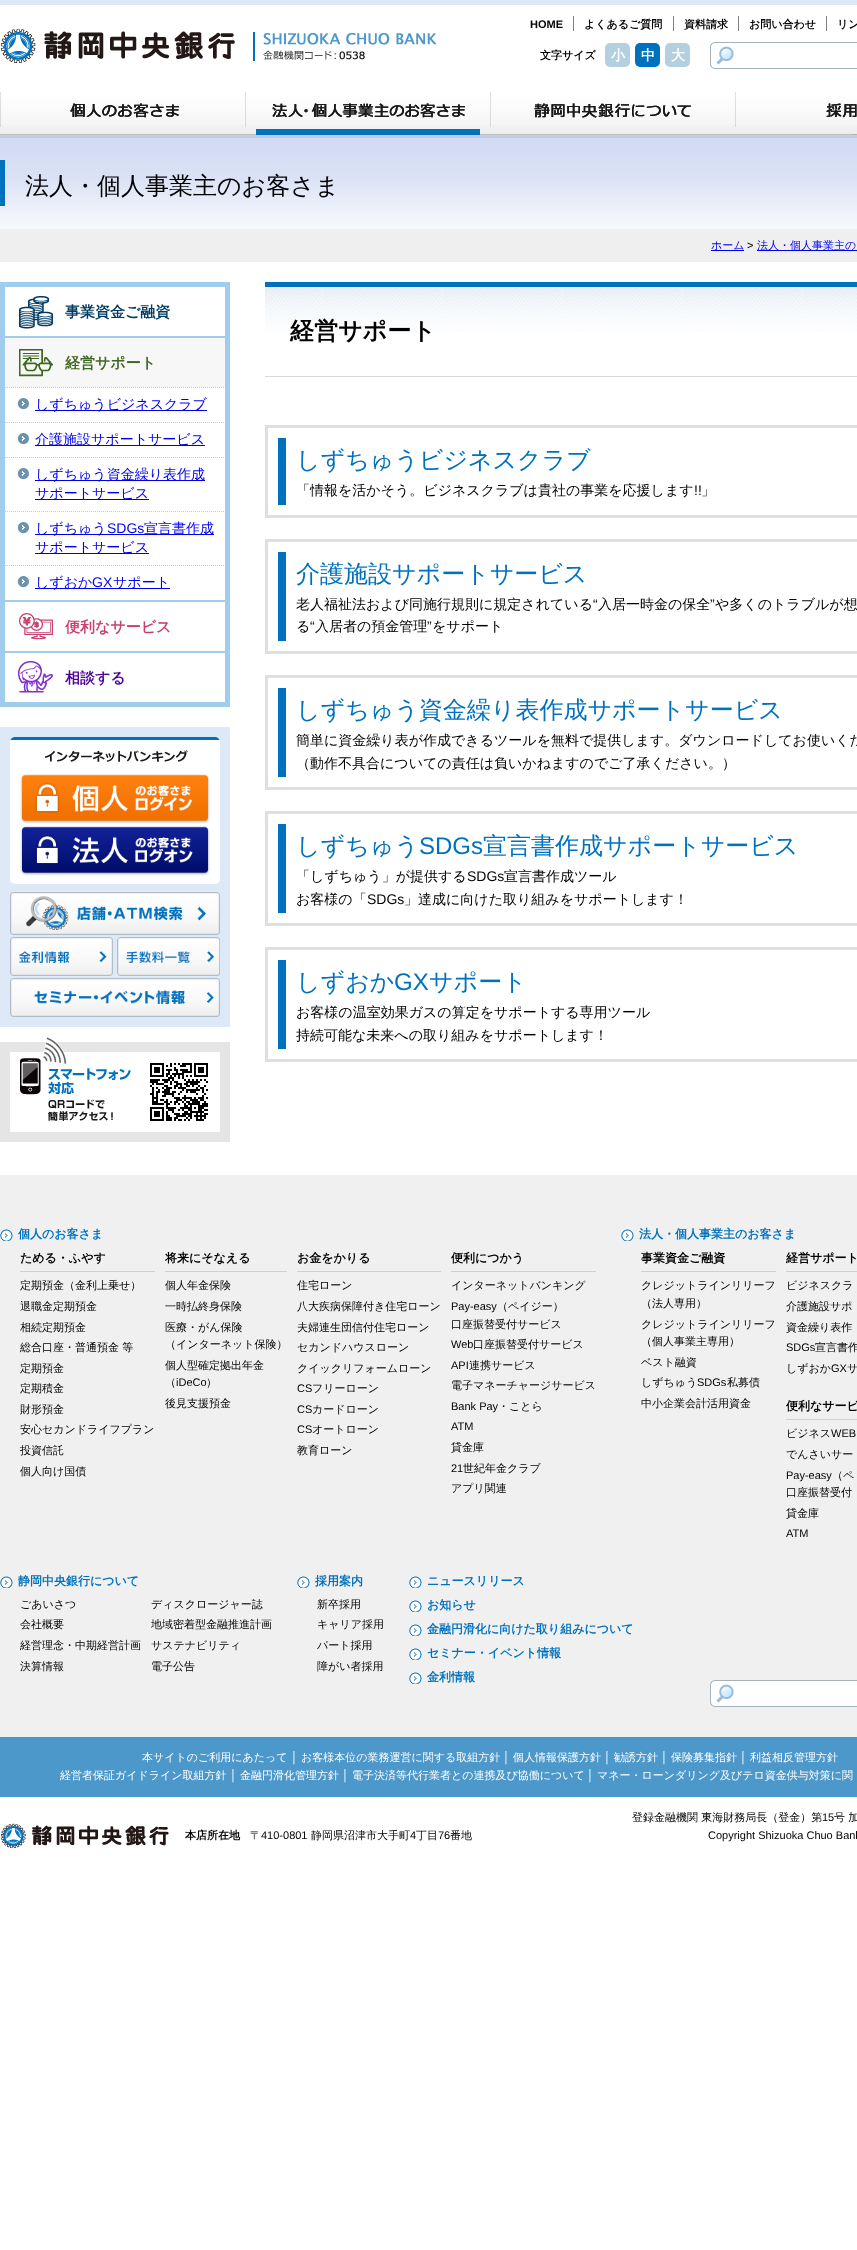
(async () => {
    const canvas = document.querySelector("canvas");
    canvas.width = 857;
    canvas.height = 2250;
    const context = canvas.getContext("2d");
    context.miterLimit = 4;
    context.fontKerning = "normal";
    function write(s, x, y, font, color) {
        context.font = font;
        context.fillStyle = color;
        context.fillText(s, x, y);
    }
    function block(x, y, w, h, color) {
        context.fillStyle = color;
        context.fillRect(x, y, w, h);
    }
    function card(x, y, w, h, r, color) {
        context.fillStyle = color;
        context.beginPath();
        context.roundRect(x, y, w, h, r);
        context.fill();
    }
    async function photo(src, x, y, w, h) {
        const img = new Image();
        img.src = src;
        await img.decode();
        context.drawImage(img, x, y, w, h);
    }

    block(0, 0, 857, 2250, "rgb(255, 255, 255)");
    await photo("media/1.png", 0, 0, 857, 134);
    write("HOME", 530, 28, "bold 11px Liberation Sans", "rgb(0, 0, 0)");
    block(573, 16, 1, 15, "rgb(128, 128, 128)");
    write("よくあるご質問", 584, 28, "bold 11px WenQuanYi Zen Hei", "rgb(0, 0, 0)");
    block(673, 16, 1, 15, "rgb(128, 128, 128)");
    write("資料請求", 684, 28, "bold 11px WenQuanYi Zen Hei", "rgb(0, 0, 0)");
    block(738, 16, 1, 15, "rgb(128, 128, 128)");
    write("お問い合わせ", 749, 28, "bold 11px WenQuanYi Zen Hei", "rgb(0, 0, 0)");
    block(826, 16, 1, 15, "rgb(128, 128, 128)");
    write("リン", 837, 28, "bold 11px WenQuanYi Zen Hei", "rgb(0, 0, 0)");
    await photo("media/2.png", 1, 29, 436, 34);
    write("文字サイズ", 540, 59, "bold 11px WenQuanYi Zen Hei", "rgb(0, 0, 0)");
    card(605, 43, 25, 24, 5, "rgb(180, 207, 224)");
    write("小", 611, 60, "bold 14px WenQuanYi Zen Hei", "rgb(255, 255, 255)");
    card(635, 43, 25, 24, 5, "rgb(0, 113, 191)");
    write("中", 641, 60, "bold 14px WenQuanYi Zen Hei", "rgb(255, 255, 255)");
    card(665, 43, 25, 24, 5, "rgb(180, 207, 224)");
    write("大", 671, 60, "bold 14px WenQuanYi Zen Hei", "rgb(255, 255, 255)");
    await photo("media/3.png", 710, 42, 147, 27);
    await photo("media/4.png", 0, 92, 857, 43);
    await photo("media/5.png", 70, 103, 109, 15);
    await photo("media/6.png", 256, 103, 224, 32);
    await photo("media/7.png", 534, 103, 157, 15);
    await photo("media/8.png", 826, 103, 31, 15);
    await photo("media/9.png", 0, 135, 857, 94);
    block(0, 160, 5, 46, "rgb(0, 113, 189)");
    write("法人・個人事業主のお客さま", 25, 194, "500 24px WenQuanYi Zen Hei", "rgb(0, 0, 0)");
    block(0, 229, 857, 33, "rgb(239, 239, 239)");
    block(711, 250, 33, 1, "rgb(0, 0, 238)");
    write("ホーム", 711, 249, "500 11px WenQuanYi Zen Hei", "rgb(0, 0, 238)");
    write(">", 747, 249, "11px Liberation Sans", "rgb(0, 0, 0)");
    block(757, 250, 100, 1, "rgb(0, 0, 238)");
    write("法人・個人事業主の", 757, 249, "500 11px WenQuanYi Zen Hei", "rgb(0, 0, 238)");
    context.strokeStyle = "rgb(160, 205, 235)";
    context.lineWidth = 5;
    context.strokeRect(2.5, 284.5, 225, 420);
    block(5, 336, 220, 2, "rgb(160, 205, 235)");
    await photo("media/10.png", 19, 296, 34, 33);
    write("事業資金ご融資", 65, 317, "bold 15px WenQuanYi Zen Hei", "rgb(0, 59, 100)");
    block(5, 600, 220, 2, "rgb(160, 205, 235)");
    block(5, 338, 220, 49, "rgb(247, 247, 247)");
    await photo("media/11.png", 19, 349, 34, 28);
    write("経営サポート", 65, 368, "bold 15px WenQuanYi Zen Hei", "rgb(62, 103, 31)");
    context.beginPath();
    context.moveTo(5, 387.5);
    context.lineTo(225, 387.5);
    context.strokeStyle = "rgb(202, 202, 202)";
    context.lineWidth = 1;
    context.setLineDash([1, 1]);
    context.stroke();
    await photo("media/12.png", 17, 398, 12, 12);
    block(35, 410, 172, 1, "rgb(0, 0, 238)");
    write("しずちゅうビジネスクラブ", 35, 409, "500 14px WenQuanYi Zen Hei", "rgb(0, 0, 238)");
    context.beginPath();
    context.moveTo(5, 422.5);
    context.lineTo(225, 422.5);
    context.stroke();
    await photo("media/12.png", 17, 433, 12, 12);
    block(35, 445, 170, 1, "rgb(0, 0, 238)");
    write("介護施設サポートサービス", 35, 444, "500 14px WenQuanYi Zen Hei", "rgb(0, 0, 238)");
    context.beginPath();
    context.moveTo(5, 457.5);
    context.lineTo(225, 457.5);
    context.stroke();
    await photo("media/12.png", 17, 468, 12, 12);
    block(35, 480, 170, 1, "rgb(0, 0, 238)");
    write("しずちゅう資金繰り表作成", 35, 479, "500 14px WenQuanYi Zen Hei", "rgb(0, 0, 238)");
    block(35, 499, 114, 1, "rgb(0, 0, 238)");
    write("サポートサービス", 35, 498, "500 14px WenQuanYi Zen Hei", "rgb(0, 0, 238)");
    context.beginPath();
    context.moveTo(5, 511.5);
    context.lineTo(225, 511.5);
    context.stroke();
    await photo("media/12.png", 17, 522, 12, 12);
    block(35, 534, 179, 1, "rgb(0, 0, 238)");
    write("しずちゅう", 35, 533, "500 14px WenQuanYi Zen Hei", "rgb(0, 0, 238)");
    write("SDGs", 107, 533, "14px Liberation Sans", "rgb(0, 0, 238)");
    write("宣言書作成", 144, 533, "500 14px WenQuanYi Zen Hei", "rgb(0, 0, 238)");
    block(35, 553, 114, 1, "rgb(0, 0, 238)");
    write("サポートサービス", 35, 552, "500 14px WenQuanYi Zen Hei", "rgb(0, 0, 238)");
    context.beginPath();
    context.moveTo(5, 565.5);
    context.lineTo(225, 565.5);
    context.stroke();
    await photo("media/12.png", 17, 576, 12, 12);
    block(35, 588, 135, 1, "rgb(0, 0, 238)");
    write("しずおか", 35, 587, "500 14px WenQuanYi Zen Hei", "rgb(0, 0, 238)");
    write("GX", 92, 587, "14px Liberation Sans", "rgb(0, 0, 238)");
    write("サポート", 113, 587, "500 14px WenQuanYi Zen Hei", "rgb(0, 0, 238)");
    block(5, 651, 220, 2, "rgb(160, 205, 235)");
    await photo("media/13.png", 19, 613, 34, 27);
    write("便利なサービス", 65, 632, "bold 15px WenQuanYi Zen Hei", "rgb(198, 67, 113)");
    await photo("media/14.png", 18, 661, 35, 32);
    write("相談する", 65, 683, "bold 15px WenQuanYi Zen Hei", "rgb(81, 5, 147)");
    block(0, 727, 230, 300, "rgb(221, 233, 246)");
    card(10, 737, 210, 147, 5, "rgb(255, 255, 255)");
    await photo("media/15.png", 10, 737, 210, 25);
    await photo("media/16.png", 20, 774, 190, 50);
    await photo("media/17.png", 20, 826, 190, 50);
    await photo("media/18.png", 10, 892, 210, 43);
    await photo("media/19.png", 10, 937, 103, 39);
    await photo("media/20.png", 117, 937, 103, 39);
    await photo("media/21.png", 10, 978, 210, 39);
    await photo("media/22.png", 0, 1037, 230, 105);
    await photo("media/23.png", 265, 287, 592, 45);
    block(265, 282, 592, 5, "rgb(0, 113, 189)");
    block(265, 376, 592, 1, "rgb(216, 216, 216)");
    write("経営サポート", 290, 339, "bold 24px WenQuanYi Zen Hei", "rgb(0, 0, 0)");
    context.strokeStyle = "rgb(223, 223, 223)";
    context.lineWidth = 3;
    context.setLineDash([]);
    context.strokeRect(266.5, 426.5, 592, 90);
    block(278, 438, 8, 67, "rgb(0, 113, 189)");
    write("しずちゅうビジネスクラブ", 296, 468, "500 24px WenQuanYi Zen Hei", "rgb(0, 113, 189)");
    write("「情報を活かそう。ビジネスクラブは貴社の事業を応援します", 296, 495, "500 14px WenQuanYi Zen Hei", "rgb(0, 0, 0)");
    write("!!", 694, 495, "14px Liberation Sans", "rgb(0, 0, 0)");
    write("」", 701, 495, "500 14px WenQuanYi Zen Hei", "rgb(0, 0, 0)");
    context.strokeRect(266.5, 540.5, 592, 112);
    block(278, 552, 8, 89, "rgb(0, 113, 189)");
    write("介護施設サポートサービス", 296, 582, "500 24px WenQuanYi Zen Hei", "rgb(0, 113, 189)");
    write("老人福祉法および同施行規則に規定されている", 296, 609, "500 14px WenQuanYi Zen Hei", "rgb(0, 0, 0)");
    write("“", 593, 609, "14px Liberation Sans", "rgb(0, 0, 0)");
    write("入居一時金の保全", 598, 609, "500 14px WenQuanYi Zen Hei", "rgb(0, 0, 0)");
    write("”", 710, 609, "14px Liberation Sans", "rgb(0, 0, 0)");
    write("や多くのトラブルが想", 715, 609, "500 14px WenQuanYi Zen Hei", "rgb(0, 0, 0)");
    write("る", 296, 631, "500 14px WenQuanYi Zen Hei", "rgb(0, 0, 0)");
    write("“", 310, 631, "14px Liberation Sans", "rgb(0, 0, 0)");
    write("入居者の預金管理", 315, 631, "500 14px WenQuanYi Zen Hei", "rgb(0, 0, 0)");
    write("”", 427, 631, "14px Liberation Sans", "rgb(0, 0, 0)");
    write("をサポート", 432, 631, "500 14px WenQuanYi Zen Hei", "rgb(0, 0, 0)");
    context.strokeRect(266.5, 676.5, 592, 112);
    block(278, 688, 8, 89, "rgb(0, 113, 189)");
    write("しずちゅう資金繰り表作成サポートサービス", 296, 718, "500 24px WenQuanYi Zen Hei", "rgb(0, 113, 189)");
    write("簡単に資金繰り表が作成できるツールを無料で提供します。ダウンロードしてお使いくだ", 296, 745, "500 14px WenQuanYi Zen Hei", "rgb(0, 0, 0)");
    write("（動作不具合についての責任は負いかねますのでご了承ください。）", 296, 768, "500 14px WenQuanYi Zen Hei", "rgb(0, 0, 0)");
    context.strokeRect(266.5, 812.5, 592, 112);
    block(278, 824, 8, 89, "rgb(0, 113, 189)");
    write("しずちゅう", 296, 854, "500 24px WenQuanYi Zen Hei", "rgb(0, 113, 189)");
    write("SDGs", 419, 854, "24px Liberation Sans", "rgb(0, 113, 189)");
    write("宣言書作成サポートサービス", 483, 854, "500 24px WenQuanYi Zen Hei", "rgb(0, 113, 189)");
    write("「しずちゅう」が提供する", 296, 881, "500 14px WenQuanYi Zen Hei", "rgb(0, 0, 0)");
    write("SDGs", 467, 881, "14px Liberation Sans", "rgb(0, 0, 0)");
    write("宣言書作成ツール", 504, 881, "500 14px WenQuanYi Zen Hei", "rgb(0, 0, 0)");
    write("お客様の「", 296, 904, "500 14px WenQuanYi Zen Hei", "rgb(0, 0, 0)");
    write("SDGs", 367, 904, "14px Liberation Sans", "rgb(0, 0, 0)");
    write("」達成に向けた取り組みをサポートします！", 404, 904, "500 14px WenQuanYi Zen Hei", "rgb(0, 0, 0)");
    context.strokeRect(266.5, 948.5, 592, 112);
    block(278, 960, 8, 89, "rgb(0, 113, 189)");
    write("しずおか", 296, 990, "500 24px WenQuanYi Zen Hei", "rgb(0, 113, 189)");
    write("GX", 394, 990, "24px Liberation Sans", "rgb(0, 113, 189)");
    write("サポート", 429, 990, "500 24px WenQuanYi Zen Hei", "rgb(0, 113, 189)");
    write("お客様の温室効果ガスの算定をサポートする専用ツール", 296, 1017, "500 14px WenQuanYi Zen Hei", "rgb(0, 0, 0)");
    write("持続可能な未来への取り組みをサポートします！", 296, 1040, "500 14px WenQuanYi Zen Hei", "rgb(0, 0, 0)");
    block(0, 1175, 857, 562, "rgb(240, 240, 240)");
    await photo("media/24.png", 0, 1229, 13, 12);
    write("個人のお客さま", 18, 1238, "bold 12px WenQuanYi Zen Hei", "rgb(0, 113, 189)");
    block(20, 1271, 135, 1, "rgb(208, 208, 208)");
    write("ためる・ふやす", 20, 1262, "bold 12px WenQuanYi Zen Hei", "rgb(0, 0, 0)");
    write("定期預金（金利上乗せ）", 20, 1289, "500 11px WenQuanYi Zen Hei", "rgb(0, 0, 0)");
    write("退職金定期預金", 20, 1310, "500 11px WenQuanYi Zen Hei", "rgb(0, 0, 0)");
    write("相続定期預金", 20, 1331, "500 11px WenQuanYi Zen Hei", "rgb(0, 0, 0)");
    write("総合口座・普通預金 等", 20, 1351, "500 11px WenQuanYi Zen Hei", "rgb(0, 0, 0)");
    write("定期預金", 20, 1372, "500 11px WenQuanYi Zen Hei", "rgb(0, 0, 0)");
    write("定期積金", 20, 1392, "500 11px WenQuanYi Zen Hei", "rgb(0, 0, 0)");
    write("財形預金", 20, 1413, "500 11px WenQuanYi Zen Hei", "rgb(0, 0, 0)");
    write("安心セカンドライフプラン", 20, 1433, "500 11px WenQuanYi Zen Hei", "rgb(0, 0, 0)");
    write("投資信託", 20, 1454, "500 11px WenQuanYi Zen Hei", "rgb(0, 0, 0)");
    write("個人向け国債", 20, 1475, "500 11px WenQuanYi Zen Hei", "rgb(0, 0, 0)");
    block(165, 1271, 122, 1, "rgb(208, 208, 208)");
    write("将来にそなえる", 165, 1262, "bold 12px WenQuanYi Zen Hei", "rgb(0, 0, 0)");
    write("個人年金保険", 165, 1289, "500 11px WenQuanYi Zen Hei", "rgb(0, 0, 0)");
    write("一時払終身保険", 165, 1310, "500 11px WenQuanYi Zen Hei", "rgb(0, 0, 0)");
    write("医療・がん保険", 165, 1331, "500 11px WenQuanYi Zen Hei", "rgb(0, 0, 0)");
    write("（インターネット保険）", 165, 1348, "500 11px WenQuanYi Zen Hei", "rgb(0, 0, 0)");
    write("個人型確定拠出年金", 165, 1369, "500 11px WenQuanYi Zen Hei", "rgb(0, 0, 0)");
    write("（", 165, 1386, "500 11px WenQuanYi Zen Hei", "rgb(0, 0, 0)");
    write("iDeCo", 176, 1386, "11px Liberation Sans", "rgb(0, 0, 0)");
    write("）", 206, 1386, "500 11px WenQuanYi Zen Hei", "rgb(0, 0, 0)");
    write("後見支援預金", 165, 1407, "500 11px WenQuanYi Zen Hei", "rgb(0, 0, 0)");
    block(297, 1271, 144, 1, "rgb(208, 208, 208)");
    write("お金をかりる", 297, 1262, "bold 12px WenQuanYi Zen Hei", "rgb(0, 0, 0)");
    write("住宅ローン", 297, 1289, "500 11px WenQuanYi Zen Hei", "rgb(0, 0, 0)");
    write("八大疾病保障付き住宅ローン", 297, 1310, "500 11px WenQuanYi Zen Hei", "rgb(0, 0, 0)");
    write("夫婦連生団信付住宅ローン", 297, 1331, "500 11px WenQuanYi Zen Hei", "rgb(0, 0, 0)");
    write("セカンドハウスローン", 297, 1351, "500 11px WenQuanYi Zen Hei", "rgb(0, 0, 0)");
    write("クイックリフォームローン", 297, 1372, "500 11px WenQuanYi Zen Hei", "rgb(0, 0, 0)");
    write("CS", 297, 1392, "11px Liberation Sans", "rgb(0, 0, 0)");
    write("フリーローン", 312, 1392, "500 11px WenQuanYi Zen Hei", "rgb(0, 0, 0)");
    write("CS", 297, 1413, "11px Liberation Sans", "rgb(0, 0, 0)");
    write("カードローン", 312, 1413, "500 11px WenQuanYi Zen Hei", "rgb(0, 0, 0)");
    write("CS", 297, 1433, "11px Liberation Sans", "rgb(0, 0, 0)");
    write("オートローン", 312, 1433, "500 11px WenQuanYi Zen Hei", "rgb(0, 0, 0)");
    write("教育ローン", 297, 1454, "500 11px WenQuanYi Zen Hei", "rgb(0, 0, 0)");
    block(451, 1271, 145, 1, "rgb(208, 208, 208)");
    write("便利につかう", 451, 1262, "bold 12px WenQuanYi Zen Hei", "rgb(0, 0, 0)");
    write("インターネットバンキング", 451, 1289, "500 11px WenQuanYi Zen Hei", "rgb(0, 0, 0)");
    write("Pay-easy", 451, 1310, "11px Liberation Sans", "rgb(0, 0, 0)");
    write("（ペイジー）", 497, 1310, "500 11px WenQuanYi Zen Hei", "rgb(0, 0, 0)");
    write("口座振替受付サービス", 451, 1328, "500 11px WenQuanYi Zen Hei", "rgb(0, 0, 0)");
    write("Web", 451, 1348, "11px Liberation Sans", "rgb(0, 0, 0)");
    write("口座振替受付サービス", 473, 1348, "500 11px WenQuanYi Zen Hei", "rgb(0, 0, 0)");
    write("API", 451, 1369, "11px Liberation Sans", "rgb(0, 0, 0)");
    write("連携サービス", 469, 1369, "500 11px WenQuanYi Zen Hei", "rgb(0, 0, 0)");
    write("電子マネーチャージサービス", 451, 1389, "500 11px WenQuanYi Zen Hei", "rgb(0, 0, 0)");
    write("Bank Pay", 451, 1410, "11px Liberation Sans", "rgb(0, 0, 0)");
    write("・ことら", 498, 1410, "500 11px WenQuanYi Zen Hei", "rgb(0, 0, 0)");
    write("ATM", 451, 1430, "11px Liberation Sans", "rgb(0, 0, 0)");
    write("貸金庫", 451, 1451, "500 11px WenQuanYi Zen Hei", "rgb(0, 0, 0)");
    write("21", 451, 1472, "11px Liberation Sans", "rgb(0, 0, 0)");
    write("世紀年金クラブ", 463, 1472, "500 11px WenQuanYi Zen Hei", "rgb(0, 0, 0)");
    write("アプリ関連", 451, 1492, "500 11px WenQuanYi Zen Hei", "rgb(0, 0, 0)");
    await photo("media/24.png", 621, 1229, 13, 12);
    write("法人・個人事業主のお客さま", 639, 1238, "bold 12px WenQuanYi Zen Hei", "rgb(0, 113, 189)");
    block(641, 1271, 135, 1, "rgb(208, 208, 208)");
    write("事業資金ご融資", 641, 1262, "bold 12px WenQuanYi Zen Hei", "rgb(0, 0, 0)");
    write("クレジットラインリリーフ", 641, 1289, "500 11px WenQuanYi Zen Hei", "rgb(0, 0, 0)");
    write("（法人専用）", 641, 1307, "500 11px WenQuanYi Zen Hei", "rgb(0, 0, 0)");
    write("クレジットラインリリーフ", 641, 1328, "500 11px WenQuanYi Zen Hei", "rgb(0, 0, 0)");
    write("（個人事業主専用）", 641, 1345, "500 11px WenQuanYi Zen Hei", "rgb(0, 0, 0)");
    write("ベスト融資", 641, 1366, "500 11px WenQuanYi Zen Hei", "rgb(0, 0, 0)");
    write("しずちゅう", 641, 1386, "500 11px WenQuanYi Zen Hei", "rgb(0, 0, 0)");
    write("SDGs", 697, 1386, "11px Liberation Sans", "rgb(0, 0, 0)");
    write("私募債", 727, 1386, "500 11px WenQuanYi Zen Hei", "rgb(0, 0, 0)");
    write("中小企業会計活用資金", 641, 1407, "500 11px WenQuanYi Zen Hei", "rgb(0, 0, 0)");
    block(786, 1271, 71, 1, "rgb(208, 208, 208)");
    write("経営サポート", 786, 1262, "bold 12px WenQuanYi Zen Hei", "rgb(0, 0, 0)");
    write("ビジネスクラ", 786, 1289, "500 11px WenQuanYi Zen Hei", "rgb(0, 0, 0)");
    write("介護施設サポ", 786, 1310, "500 11px WenQuanYi Zen Hei", "rgb(0, 0, 0)");
    write("資金繰り表作", 786, 1331, "500 11px WenQuanYi Zen Hei", "rgb(0, 0, 0)");
    write("SDGs", 786, 1351, "11px Liberation Sans", "rgb(0, 0, 0)");
    write("宣言書作", 815, 1351, "500 11px WenQuanYi Zen Hei", "rgb(0, 0, 0)");
    write("しずおか", 786, 1372, "500 11px WenQuanYi Zen Hei", "rgb(0, 0, 0)");
    write("GX", 831, 1372, "11px Liberation Sans", "rgb(0, 0, 0)");
    write("サ", 847, 1372, "500 11px WenQuanYi Zen Hei", "rgb(0, 0, 0)");
    block(786, 1419, 71, 1, "rgb(208, 208, 208)");
    write("便利なサービ", 786, 1410, "bold 12px WenQuanYi Zen Hei", "rgb(0, 0, 0)");
    write("ビジネス", 786, 1437, "500 11px WenQuanYi Zen Hei", "rgb(0, 0, 0)");
    write("WEB", 831, 1437, "11px Liberation Sans", "rgb(0, 0, 0)");
    write("でんさいサー", 786, 1458, "500 11px WenQuanYi Zen Hei", "rgb(0, 0, 0)");
    write("Pay-easy", 786, 1479, "11px Liberation Sans", "rgb(0, 0, 0)");
    write("（ペ", 832, 1479, "500 11px WenQuanYi Zen Hei", "rgb(0, 0, 0)");
    write("口座振替受付", 786, 1496, "500 11px WenQuanYi Zen Hei", "rgb(0, 0, 0)");
    write("貸金庫", 786, 1517, "500 11px WenQuanYi Zen Hei", "rgb(0, 0, 0)");
    write("ATM", 786, 1537, "11px Liberation Sans", "rgb(0, 0, 0)");
    await photo("media/24.png", 0, 1576, 13, 12);
    write("静岡中央銀行について", 18, 1585, "bold 12px WenQuanYi Zen Hei", "rgb(0, 113, 189)");
    write("ごあいさつ", 20, 1608, "500 11px WenQuanYi Zen Hei", "rgb(0, 0, 0)");
    write("会社概要", 20, 1628, "500 11px WenQuanYi Zen Hei", "rgb(0, 0, 0)");
    write("経営理念・中期経営計画", 20, 1649, "500 11px WenQuanYi Zen Hei", "rgb(0, 0, 0)");
    write("決算情報", 20, 1670, "500 11px WenQuanYi Zen Hei", "rgb(0, 0, 0)");
    write("ディスクロージャー誌", 151, 1608, "500 11px WenQuanYi Zen Hei", "rgb(0, 0, 0)");
    write("地域密着型金融推進計画", 151, 1628, "500 11px WenQuanYi Zen Hei", "rgb(0, 0, 0)");
    write("サステナビリティ", 151, 1649, "500 11px WenQuanYi Zen Hei", "rgb(0, 0, 0)");
    write("電子公告", 151, 1670, "500 11px WenQuanYi Zen Hei", "rgb(0, 0, 0)");
    await photo("media/24.png", 297, 1576, 13, 12);
    write("採用案内", 315, 1585, "bold 12px WenQuanYi Zen Hei", "rgb(0, 113, 189)");
    write("新卒採用", 317, 1608, "500 11px WenQuanYi Zen Hei", "rgb(0, 0, 0)");
    write("キャリア採用", 317, 1628, "500 11px WenQuanYi Zen Hei", "rgb(0, 0, 0)");
    write("パート採用", 317, 1649, "500 11px WenQuanYi Zen Hei", "rgb(0, 0, 0)");
    write("障がい者採用", 317, 1670, "500 11px WenQuanYi Zen Hei", "rgb(0, 0, 0)");
    await photo("media/24.png", 409, 1576, 13, 12);
    write("ニュースリリース", 427, 1585, "bold 12px WenQuanYi Zen Hei", "rgb(0, 113, 189)");
    await photo("media/24.png", 409, 1600, 13, 12);
    write("お知らせ", 427, 1609, "bold 12px WenQuanYi Zen Hei", "rgb(0, 113, 189)");
    await photo("media/24.png", 409, 1624, 13, 12);
    write("金融円滑化に向けた取り組みについて", 427, 1633, "bold 12px WenQuanYi Zen Hei", "rgb(0, 113, 189)");
    await photo("media/24.png", 409, 1648, 13, 12);
    write("セミナー・イベント情報", 427, 1657, "bold 12px WenQuanYi Zen Hei", "rgb(0, 113, 189)");
    await photo("media/24.png", 409, 1672, 13, 12);
    write("金利情報", 427, 1681, "bold 12px WenQuanYi Zen Hei", "rgb(0, 113, 189)");
    await photo("media/25.png", 710, 1680, 147, 27);
    block(0, 1737, 857, 60, "rgb(76, 152, 202)");
    write("本サイトのご利用にあたって", 142, 1761, "500 11px WenQuanYi Zen Hei", "rgb(255, 255, 255)");
    write("│", 291, 1761, "11px Liberation Sans", "rgb(255, 255, 255)");
    write("お客様本位の業務運営に関する取組方針", 301, 1761, "500 11px WenQuanYi Zen Hei", "rgb(255, 255, 255)");
    write("│", 503, 1761, "11px Liberation Sans", "rgb(255, 255, 255)");
    write("個人情報保護方針", 513, 1761, "500 11px WenQuanYi Zen Hei", "rgb(255, 255, 255)");
    write("│", 604, 1761, "11px Liberation Sans", "rgb(255, 255, 255)");
    write("勧誘方針", 614, 1761, "500 11px WenQuanYi Zen Hei", "rgb(255, 255, 255)");
    write("│", 661, 1761, "11px Liberation Sans", "rgb(255, 255, 255)");
    write("保険募集指針", 671, 1761, "500 11px WenQuanYi Zen Hei", "rgb(255, 255, 255)");
    write("│", 740, 1761, "11px Liberation Sans", "rgb(255, 255, 255)");
    write("利益相反管理方針", 750, 1761, "500 11px WenQuanYi Zen Hei", "rgb(255, 255, 255)");
    write("経営者保証ガイドライン取組方針", 60, 1779, "500 11px WenQuanYi Zen Hei", "rgb(255, 255, 255)");
    write("│", 230, 1779, "11px Liberation Sans", "rgb(255, 255, 255)");
    write("金融円滑化管理方針", 240, 1779, "500 11px WenQuanYi Zen Hei", "rgb(255, 255, 255)");
    write("│", 342, 1779, "11px Liberation Sans", "rgb(255, 255, 255)");
    write("電子決済等代行業者との連携及び協働について", 352, 1779, "500 11px WenQuanYi Zen Hei", "rgb(255, 255, 255)");
    write("│", 587, 1779, "11px Liberation Sans", "rgb(255, 255, 255)");
    write("マネー・ローンダリング及びテロ資金供与対策に関", 597, 1779, "500 11px WenQuanYi Zen Hei", "rgb(255, 255, 255)");
    write("登録金融機関 東海財務局長（登金）第", 632, 1821, "500 11px WenQuanYi Zen Hei", "rgb(0, 0, 0)");
    write("15", 822, 1821, "11px Liberation Sans", "rgb(0, 0, 0)");
    write("号 加", 834, 1821, "500 11px WenQuanYi Zen Hei", "rgb(0, 0, 0)");
    await photo("media/26.png", 1, 1823, 168, 26);
    write("本店所在地", 185, 1839, "bold 11px WenQuanYi Zen Hei", "rgb(0, 0, 0)");
    write("〒", 250, 1839, "500 11px WenQuanYi Zen Hei", "rgb(0, 0, 0)");
    write("410-0801", 261, 1839, "11px Liberation Sans", "rgb(0, 0, 0)");
    write("静岡県沼津市大手町", 311, 1839, "500 11px WenQuanYi Zen Hei", "rgb(0, 0, 0)");
    write("4", 410, 1839, "11px Liberation Sans", "rgb(0, 0, 0)");
    write("丁目", 416, 1839, "500 11px WenQuanYi Zen Hei", "rgb(0, 0, 0)");
    write("76", 438, 1839, "11px Liberation Sans", "rgb(0, 0, 0)");
    write("番地", 450, 1839, "500 11px WenQuanYi Zen Hei", "rgb(0, 0, 0)");
    write("Copyright Shizuoka Chuo Bank", 708, 1839, "11px Liberation Sans", "rgb(0, 0, 0)");
})();
